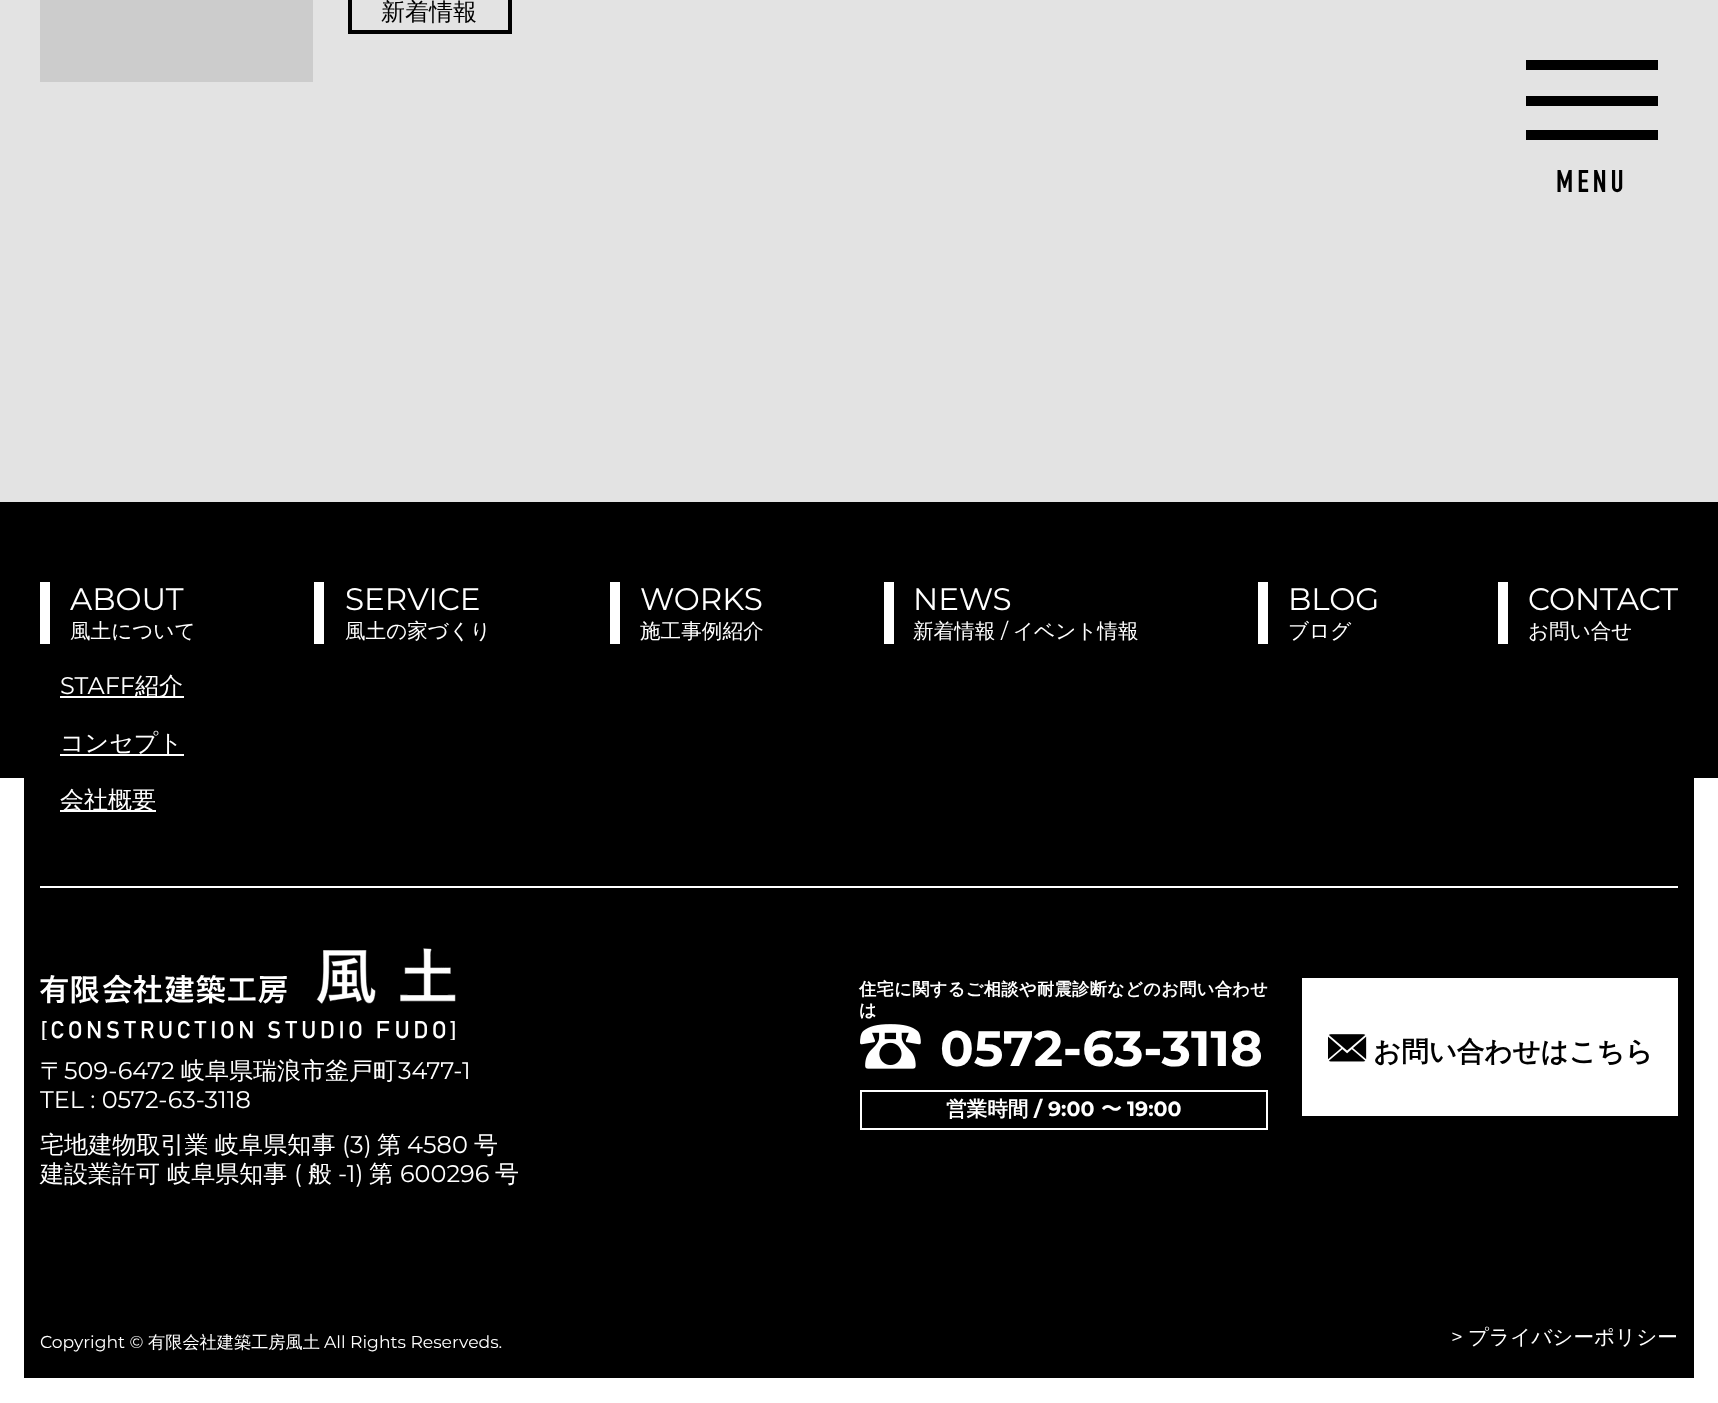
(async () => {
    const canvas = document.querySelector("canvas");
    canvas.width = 1718;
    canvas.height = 1403;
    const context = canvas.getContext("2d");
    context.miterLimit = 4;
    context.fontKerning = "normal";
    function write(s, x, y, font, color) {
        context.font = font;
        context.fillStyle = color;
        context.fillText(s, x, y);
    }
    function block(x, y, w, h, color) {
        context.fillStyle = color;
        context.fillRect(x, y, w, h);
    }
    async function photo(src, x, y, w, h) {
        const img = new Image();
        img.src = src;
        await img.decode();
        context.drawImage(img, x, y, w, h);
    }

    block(0, 0, 1718, 1403, "rgb(227, 227, 227)");
    block(40, 0, 273, 82, "rgb(204, 204, 204)");
    context.strokeStyle = "rgb(0, 0, 0)";
    context.lineWidth = 4;
    context.strokeRect(350, -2, 160, 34);
    write("新着情報", 381, 20, "500 24px WenQuanYi Zen Hei", "rgb(0, 0, 0)");
    block(1526, 60, 132, 10, "rgb(0, 0, 0)");
    block(1526, 96, 132, 10, "rgb(0, 0, 0)");
    block(1526, 130, 132, 10, "rgb(0, 0, 0)");
    context.letterSpacing = "4px";
    write("MENU", 1556, 192, "31px 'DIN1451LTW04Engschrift'", "rgb(0, 0, 0)");
    block(0, 502, 1718, 876, "rgb(0, 0, 0)");
    block(0, 1378, 1718, 25, "rgb(255, 255, 255)");
    block(40, 886, 1638, 2, "rgb(255, 255, 255)");
    block(40, 582, 10, 62, "rgb(255, 255, 255)");
    context.letterSpacing = "0px";
    write("ABOUT", 70, 610, "31px Montserrat", "rgb(255, 255, 255)");
    write("風土について", 70, 638, "500 20.6px WenQuanYi Zen Hei", "rgb(255, 255, 255)");
    write("STAFF", 60, 694, "24px Montserrat", "rgb(255, 255, 255)");
    block(60, 696, 124, 2, "rgb(255, 255, 255)");
    write("紹介", 135, 694, "500 24px WenQuanYi Zen Hei", "rgb(255, 255, 255)");
    write("コンセプト", 60, 751, "500 24px WenQuanYi Zen Hei", "rgb(255, 255, 255)");
    block(60, 754, 124, 2, "rgb(255, 255, 255)");
    block(60, 810, 96, 2, "rgb(255, 255, 255)");
    write("会社概要", 60, 808, "500 24px WenQuanYi Zen Hei", "rgb(255, 255, 255)");
    block(314, 582, 10, 62, "rgb(255, 255, 255)");
    write("SERVICE", 345, 610, "31px Montserrat", "rgb(255, 255, 255)");
    write("風土の家づくり", 345, 638, "500 20.6px WenQuanYi Zen Hei", "rgb(255, 255, 255)");
    block(610, 582, 10, 62, "rgb(255, 255, 255)");
    write("WORKS", 640, 610, "31px Montserrat", "rgb(255, 255, 255)");
    write("施工事例紹介", 640, 638, "500 20.6px WenQuanYi Zen Hei", "rgb(255, 255, 255)");
    block(884, 582, 10, 62, "rgb(255, 255, 255)");
    write("NEWS", 913, 610, "31px Montserrat", "rgb(255, 255, 255)");
    write("新着情報", 913, 638, "500 20.6px WenQuanYi Zen Hei", "rgb(255, 255, 255)");
    write("/", 1001, 638, "20.6px Montserrat", "rgb(255, 255, 255)");
    write("イベント情報", 1013, 638, "500 20.6px WenQuanYi Zen Hei", "rgb(255, 255, 255)");
    block(1258, 582, 10, 62, "rgb(255, 255, 255)");
    write("BLOG", 1288, 610, "31px Montserrat", "rgb(255, 255, 255)");
    write("ブログ", 1288, 638, "500 20.6px WenQuanYi Zen Hei", "rgb(255, 255, 255)");
    block(1498, 582, 10, 62, "rgb(255, 255, 255)");
    write("CONTACT", 1528, 610, "31px Montserrat", "rgb(255, 255, 255)");
    write("お問い合せ", 1528, 638, "500 20.6px WenQuanYi Zen Hei", "rgb(255, 255, 255)");
    block(0, 778, 24, 600, "rgb(255, 255, 255)");
    await photo("media/1.png", 40, 948, 416, 92);
    write("〒", 40, 1079, "500 24px WenQuanYi Zen Hei", "rgb(255, 255, 255)");
    write("509-6472", 64, 1079, "24px Montserrat", "rgb(255, 255, 255)");
    write("岐阜県瑞浪市釜戸町", 181, 1079, "500 24px WenQuanYi Zen Hei", "rgb(255, 255, 255)");
    write("3477-1", 398, 1079, "24px Montserrat", "rgb(255, 255, 255)");
    write("TEL : 0572-63-3118", 40, 1108, "24px Montserrat", "rgb(255, 255, 255)");
    context.letterSpacing = "0.1px";
    context.wordSpacing = "-1px";
    write("宅地建物取引業 岐阜県知事", 40, 1153, "500 24px WenQuanYi Zen Hei", "rgb(255, 255, 255)");
    context.wordSpacing = "0px";
    write("(3)", 342, 1153, "24px Montserrat", "rgb(255, 255, 255)");
    write("第", 377, 1153, "500 24px WenQuanYi Zen Hei", "rgb(255, 255, 255)");
    write("4580", 407, 1153, "24px Montserrat", "rgb(255, 255, 255)");
    write("号", 474, 1153, "500 24px WenQuanYi Zen Hei", "rgb(255, 255, 255)");
    context.letterSpacing = "0px";
    write("建設業許可 岐阜県知事", 40, 1182, "500 24px WenQuanYi Zen Hei", "rgb(255, 255, 255)");
    write("(", 294, 1182, "24px Montserrat", "rgb(255, 255, 255)");
    write("般", 308, 1182, "500 24px WenQuanYi Zen Hei", "rgb(255, 255, 255)");
    write("-1)", 338, 1182, "24px Montserrat", "rgb(255, 255, 255)");
    write("第", 369, 1182, "500 24px WenQuanYi Zen Hei", "rgb(255, 255, 255)");
    write("600296", 400, 1182, "24px Montserrat", "rgb(255, 255, 255)");
    write("号", 495, 1182, "500 24px WenQuanYi Zen Hei", "rgb(255, 255, 255)");
    context.letterSpacing = "0.4px";
    write("住宅に関するご相談や耐震診断などのお問い合わせ", 859, 995, "bold 17.2px WenQuanYi Zen Hei", "rgb(255, 255, 255)");
    context.letterSpacing = "0px";
    write("は", 859, 1016, "bold 17.2px WenQuanYi Zen Hei", "rgb(255, 255, 255)");
    await photo("media/2.png", 860, 1024, 61, 45);
    write("0572-63-3118", 940, 1066, "bold 49.75px Montserrat", "rgb(255, 255, 255)");
    context.strokeStyle = "rgb(255, 255, 255)";
    context.lineWidth = 2;
    context.strokeRect(861, 1091, 406, 38);
    write("営業時間", 946, 1116, "bold 20.6px WenQuanYi Zen Hei", "rgb(255, 255, 255)");
    write("/ 9:00", 1034, 1116, "bold 20.6px Montserrat", "rgb(255, 255, 255)");
    write("〜", 1101, 1116, "bold 20.6px WenQuanYi Zen Hei", "rgb(255, 255, 255)");
    write("19:00", 1127, 1116, "bold 20.6px Montserrat", "rgb(255, 255, 255)");
    block(1302, 978, 376, 138, "rgb(255, 255, 255)");
    await photo("media/3.png", 1328, 1034, 39, 28);
    write("お問い合わせはこちら", 1373, 1061, "bold 27.5px WenQuanYi Zen Hei", "rgb(0, 0, 0)");
    write("Copyright ©", 40, 1348, "17.2px Montserrat", "rgb(255, 255, 255)");
    write("有限会社建築工房風土", 148, 1348, "500 17.2px WenQuanYi Zen Hei", "rgb(255, 255, 255)");
    write("All Rights Reserveds.", 324, 1348, "17.2px Montserrat", "rgb(255, 255, 255)");
    write(">", 1451, 1344, "20.6px Montserrat", "rgb(255, 255, 255)");
    write("プライバシーポリシー", 1468, 1344, "500 20.6px WenQuanYi Zen Hei", "rgb(255, 255, 255)");
    block(1694, 778, 24, 600, "rgb(255, 255, 255)");
})();
